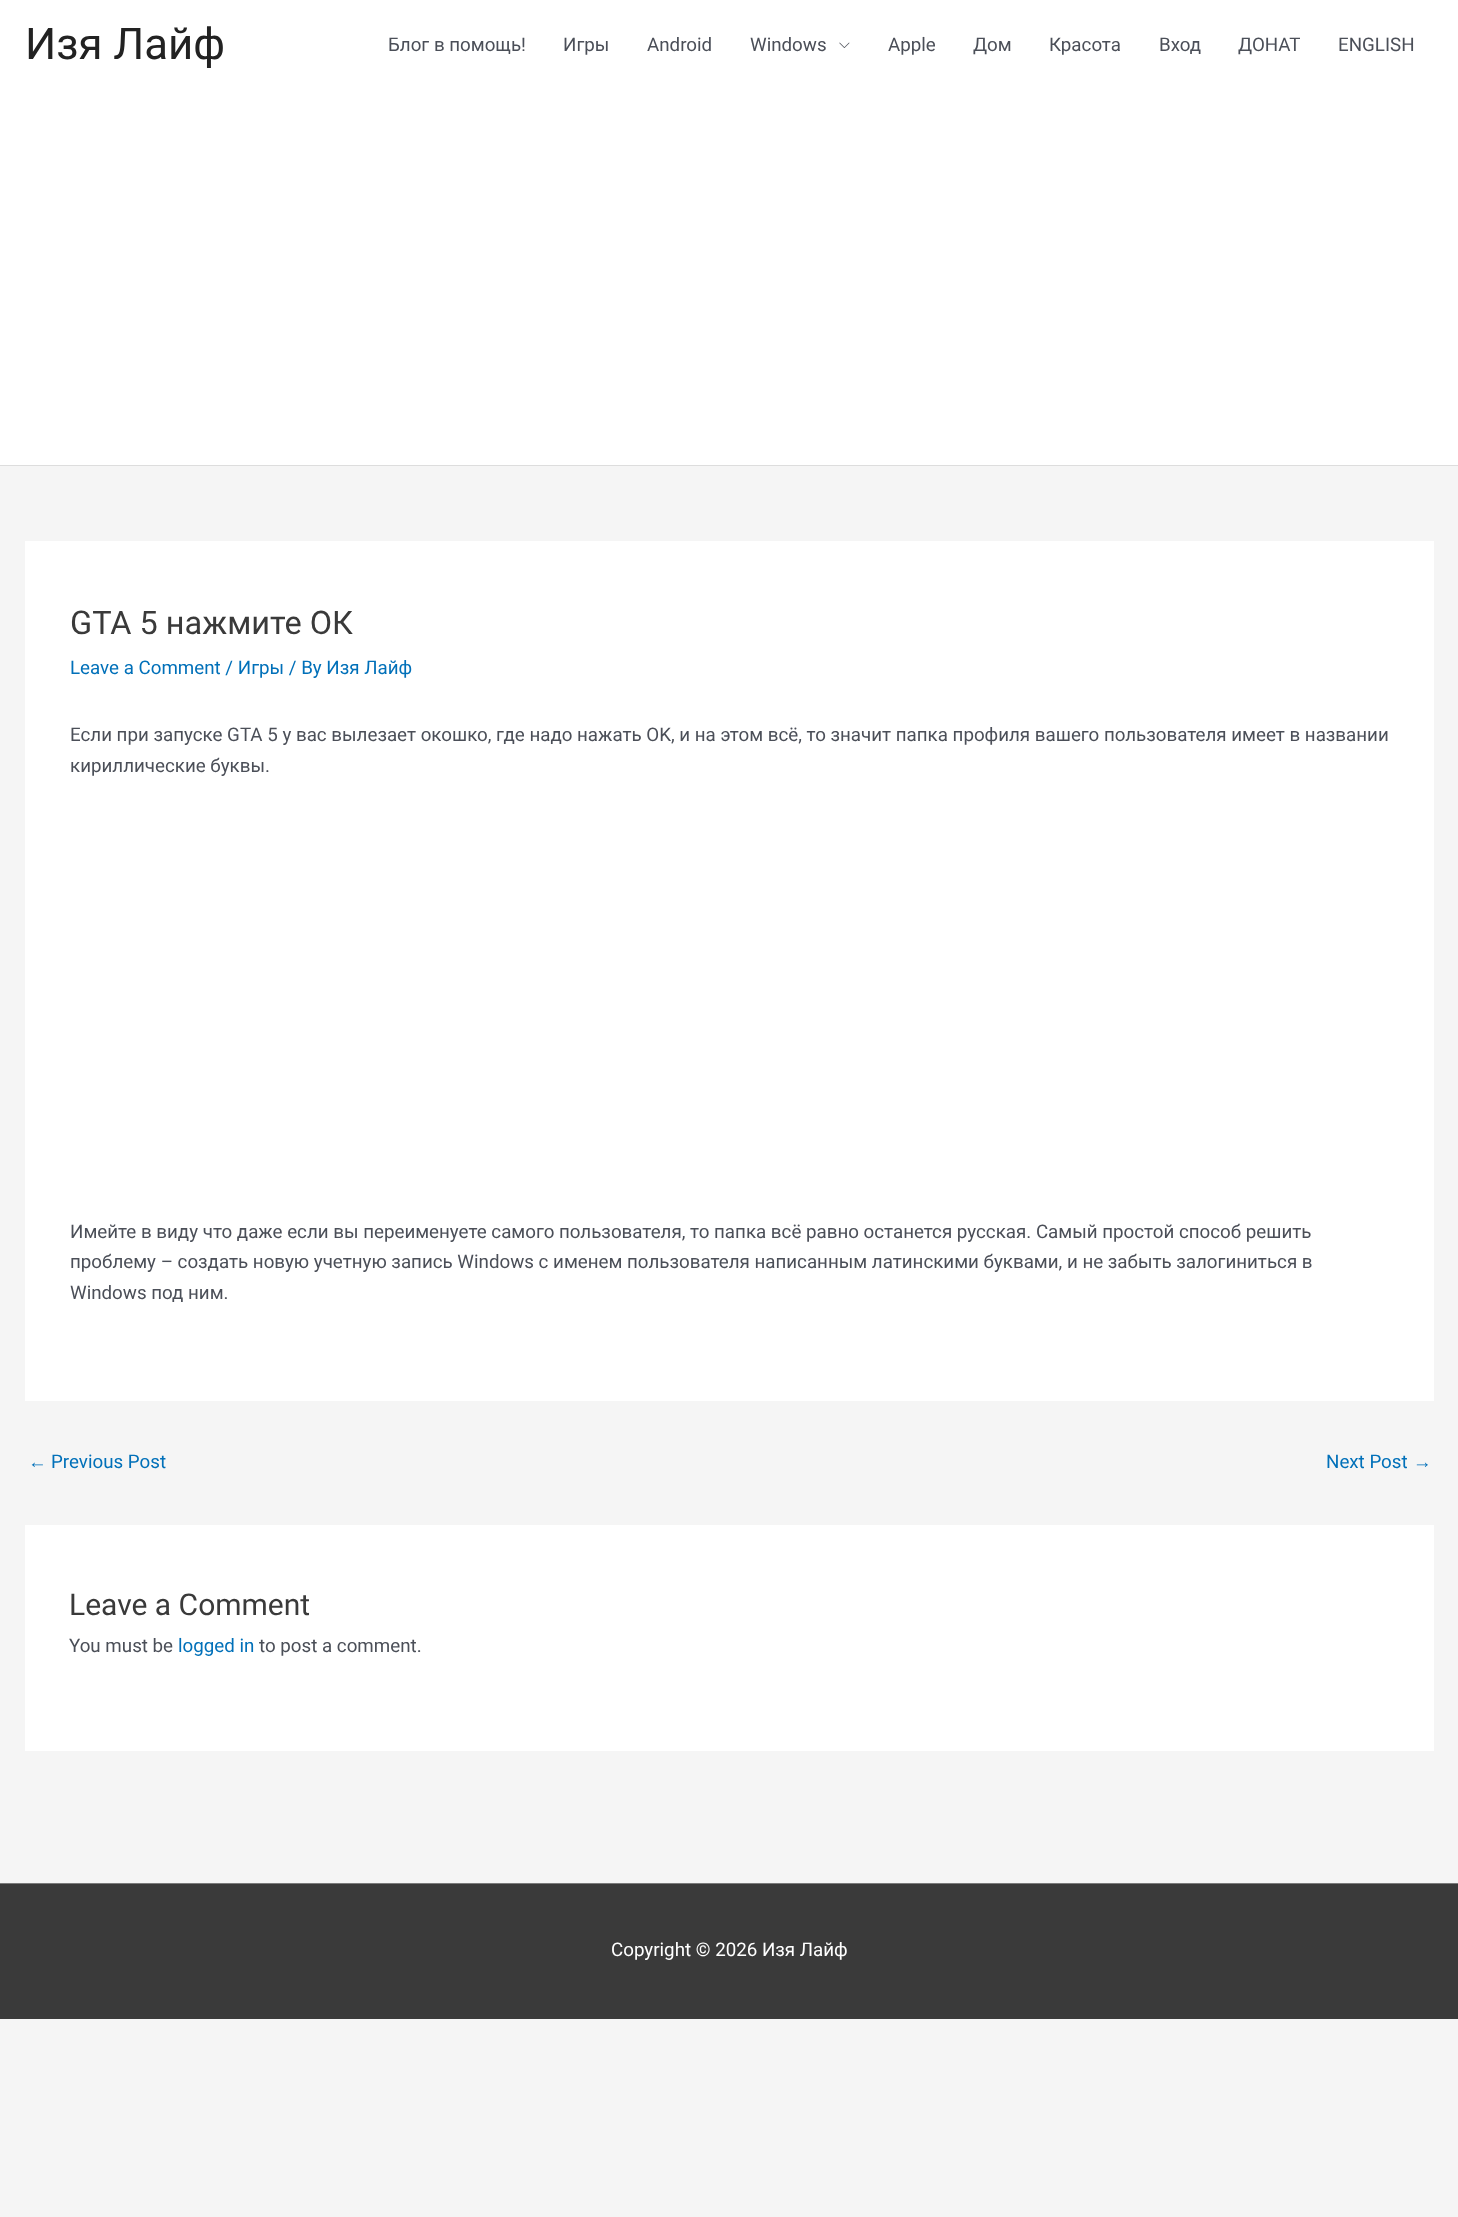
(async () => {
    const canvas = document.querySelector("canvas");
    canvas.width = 1458;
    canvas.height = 2217;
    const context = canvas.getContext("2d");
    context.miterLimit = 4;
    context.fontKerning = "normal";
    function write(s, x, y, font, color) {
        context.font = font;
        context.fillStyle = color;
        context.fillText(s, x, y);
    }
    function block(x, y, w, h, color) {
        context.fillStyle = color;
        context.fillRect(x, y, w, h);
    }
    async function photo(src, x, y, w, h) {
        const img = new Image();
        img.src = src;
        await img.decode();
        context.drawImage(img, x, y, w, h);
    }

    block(0, 0, 1458, 2217, "rgb(245, 245, 245)");
    block(0, 0, 1458, 465, "rgb(255, 255, 255)");
    block(0, 465, 1458, 1, "rgb(221, 221, 221)");
    write("Изя Лайф", 25, 59, "43.75px 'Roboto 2'", "rgb(34, 34, 34)");
    write("Блог в помощь!", 388, 51, "18.75px 'Roboto 2'", "rgb(75, 79, 88)");
    write("Игры", 563, 51, "18.75px 'Roboto 2'", "rgb(75, 79, 88)");
    write("Android", 647, 51, "18.75px 'Roboto 2'", "rgb(75, 79, 88)");
    write("Windows", 750, 51, "18.75px 'Roboto 2'", "rgb(75, 79, 88)");
    await photo("media/1.png", 839, 42, 11, 6);
    write("Apple", 888, 51, "18.75px 'Roboto 2'", "rgb(75, 79, 88)");
    write("Дом", 973, 51, "18.75px 'Roboto 2'", "rgb(75, 79, 88)");
    write("Красота", 1049, 51, "18.75px 'Roboto 2'", "rgb(75, 79, 88)");
    write("Вход", 1159, 51, "18.75px 'Roboto 2'", "rgb(75, 79, 88)");
    write("ДОНАТ", 1238, 51, "18.75px 'Roboto 2'", "rgb(75, 79, 88)");
    write("ENGLISH", 1338, 51, "18.75px 'Roboto 2'", "rgb(75, 79, 88)");
    block(25, 541, 1409, 860, "rgb(255, 255, 255)");
    write("GTA 5 нажмите ОК", 70, 634, "32.5px Roboto", "rgb(58, 58, 58)");
    write("Leave a Comment / Игры / By Изя Лайф", 70, 674, "18.75px 'Roboto 2'", "rgb(1, 112, 185)");
    write("Если при запуске GTA 5 у вас вылезает окошко, где надо нажать OK, и на этом всё, то значит папка профиля вашего пользователя имеет в названии", 70, 741, "18.75px 'Roboto 2'", "rgb(75, 79, 88)");
    write("кириллические буквы.", 70, 772, "18.75px 'Roboto 2'", "rgb(75, 79, 88)");
    write("Имейте в виду что даже если вы переименуете самого пользователя, то папка всё равно останется русская. Самый простой способ решить", 70, 1238, "18.75px 'Roboto 2'", "rgb(75, 79, 88)");
    write("проблему – создать новую учетную запись Windows с именем пользователя написанным латинскими буквами, и не забыть залогиниться в", 70, 1268, "18.75px 'Roboto 2'", "rgb(75, 79, 88)");
    write("Windows под ним.", 70, 1299, "18.75px 'Roboto 2'", "rgb(75, 79, 88)");
    write("←", 28, 1468, "18.75px Liberation Sans", "rgb(1, 112, 185)");
    write("Previous Post", 51, 1468, "18.75px 'Roboto 2'", "rgb(1, 112, 185)");
    write("Next Post", 1326, 1468, "18.75px 'Roboto 2'", "rgb(1, 112, 185)");
    write("→", 1413, 1468, "18.75px Liberation Sans", "rgb(1, 112, 185)");
    block(25, 1525, 1409, 226, "rgb(255, 255, 255)");
    write("Leave a Comment", 69, 1615, "30px 'Roboto 2'", "rgb(58, 58, 58)");
    write("You must be", 69, 1652, "18.75px 'Roboto 2'", "rgb(75, 79, 88)");
    write("logged in", 178, 1652, "18.75px 'Roboto 2'", "rgb(1, 112, 185)");
    write("to post a comment.", 259, 1652, "18.75px 'Roboto 2'", "rgb(75, 79, 88)");
    block(0, 1883, 1458, 1, "rgb(122, 122, 122)");
    block(0, 1884, 1458, 135, "rgb(58, 58, 58)");
    write("Copyright © 2026 Изя Лайф", 611, 1956, "18.75px 'Roboto 2'", "rgb(255, 255, 255)");
})();
